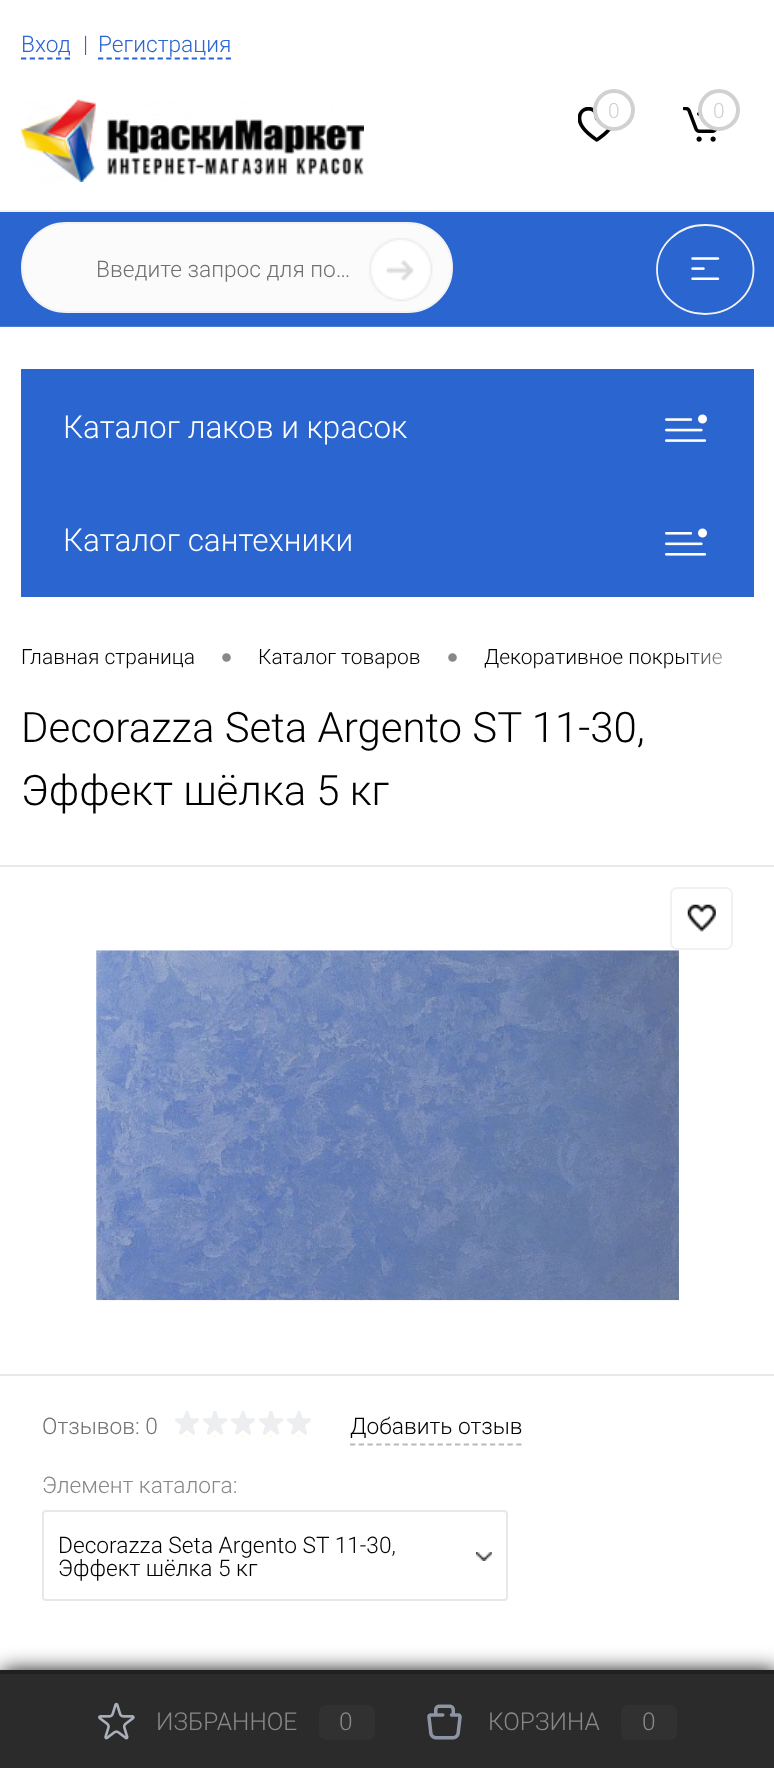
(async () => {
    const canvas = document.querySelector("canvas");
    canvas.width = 774;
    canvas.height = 1768;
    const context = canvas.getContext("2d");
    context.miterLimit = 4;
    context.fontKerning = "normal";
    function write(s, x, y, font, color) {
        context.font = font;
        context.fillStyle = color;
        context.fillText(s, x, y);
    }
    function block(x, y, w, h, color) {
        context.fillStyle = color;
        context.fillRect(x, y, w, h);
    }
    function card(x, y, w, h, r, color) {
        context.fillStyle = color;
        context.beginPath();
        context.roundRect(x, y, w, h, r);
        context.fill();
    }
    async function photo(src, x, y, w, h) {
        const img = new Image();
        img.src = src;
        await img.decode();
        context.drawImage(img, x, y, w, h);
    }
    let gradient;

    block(0, 0, 774, 1768, "rgb(255, 255, 255)");
    block(0, 210, 774, 2, "rgb(243, 243, 243)");
    write("Вход", 21, 52, "300 22.75px Roboto", "rgb(42, 101, 208)");
    context.beginPath();
    context.moveTo(21, 58.5);
    context.lineTo(70, 58.5);
    context.strokeStyle = "rgb(42, 101, 208)";
    context.lineWidth = 1.8;
    context.setLineDash([5.25, 3.5]);
    context.stroke();
    write("|", 83, 52, "300 22.75px Roboto", "rgb(42, 101, 208)");
    write("Регистрация", 98, 52, "300 22.75px Roboto", "rgb(42, 101, 208)");
    context.beginPath();
    context.moveTo(98, 58.5);
    context.lineTo(231, 58.5);
    context.setLineDash([5.25, 3.27]);
    context.stroke();
    block(0, 212, 774, 114, "rgb(42, 101, 208)");
    context.fillStyle = "rgb(251, 251, 251)";
    context.beginPath();
    context.roundRect(22, 223, 430, 89, 44.5);
    context.fill();
    context.strokeStyle = "rgb(243, 243, 243)";
    context.lineWidth = 2;
    context.setLineDash([]);
    context.stroke();
    write("Введите запрос для по…", 96, 277, "300 22.75px Roboto", "rgb(113, 113, 113)");
    await photo("media/1.png", 369, 238, 64, 64);
    await photo("media/2.png", 21, 99, 343, 83);
    await photo("media/3.png", 578, 107, 33, 35);
    context.fillStyle = "rgb(255, 255, 255)";
    context.beginPath();
    context.arc(614, 110, 19, 0, Math.PI * 2);
    context.fill();
    context.strokeStyle = "rgb(209, 209, 209)";
    context.lineWidth = 4;
    context.stroke();
    write("0", 608, 118, "300 21px Roboto", "rgb(209, 209, 209)");
    await photo("media/4.png", 683, 107, 35, 35);
    context.fillStyle = "rgb(255, 255, 255)";
    context.beginPath();
    context.arc(719, 110, 19, 0, Math.PI * 2);
    context.fill();
    context.stroke();
    write("0", 713, 118, "300 21px Roboto", "rgb(209, 209, 209)");
    block(0, 326, 774, 1, "rgb(74, 124, 215)");
    await photo("media/5.png", 691, 257, 29, 23);
    context.beginPath();
    context.moveTo(705, 225);
    context.bezierCurveTo(732, 225, 753.5, 245, 753.5, 269.5);
    context.bezierCurveTo(753.5, 294, 732, 314, 705, 314);
    context.bezierCurveTo(678.5, 314, 657, 294, 657, 269.5);
    context.bezierCurveTo(657, 245, 678.5, 225, 705, 225);
    context.closePath();
    context.strokeStyle = "rgb(243, 243, 243)";
    context.lineWidth = 1.8;
    context.stroke();
    block(21, 369, 733, 228, "rgb(42, 101, 208)");
    write("Каталог лаков и красок", 63, 438, "300 31.5px Roboto", "rgb(255, 255, 255)");
    await photo("media/6.png", 665, 414, 42, 28);
    write("Каталог сантехники", 63, 551, "300 31.5px Roboto", "rgb(255, 255, 255)");
    await photo("media/7.png", 665, 528, 42, 28);
    write("Главная страница", 21, 664, "300 21px Roboto", "rgb(0, 0, 0)");
    write("•", 221, 668, "31.5px Liberation Sans", "rgb(136, 136, 136)");
    write("Каталог товаров", 258, 664, "300 21px Roboto", "rgb(0, 0, 0)");
    write("•", 447, 668, "31.5px Liberation Sans", "rgb(136, 136, 136)");
    write("Декоративное покрытие", 484, 664, "300 21px Roboto", "rgb(0, 0, 0)");
    gradient = context.createLinearGradient(693, 657, 754, 657);
    gradient.addColorStop(0, "rgba(255, 255, 255, 0.2)");
    gradient.addColorStop(1, "rgb(255, 255, 255)");
    context.fillStyle = gradient;
    context.fillRect(693, 652, 29, 13);
    write("Decorazza Seta Argento ST 11-30,", 21, 742, "300 42px Roboto", "rgb(0, 0, 0)");
    write("Эффект шёлка 5 кг", 21, 805, "300 42px Roboto", "rgb(0, 0, 0)");
    block(0, 865, 774, 2, "rgb(231, 232, 234)");
    context.beginPath();
    context.roundRect(671, 888, 61, 61, 6);
    context.strokeStyle = "rgb(241, 241, 241)";
    context.lineWidth = 2;
    context.stroke();
    await photo("media/8.png", 687, 904, 29, 28);
    await photo("media/9.png", 96, 950, 583, 351);
    block(0, 1374, 774, 2, "rgb(231, 232, 234)");
    write("Отзывов: 0", 42, 1434, "300 22.75px Roboto", "rgb(113, 113, 113)");
    await photo("media/10.png", 175, 1411, 136, 26);
    context.beginPath();
    context.moveTo(350, 1444.5);
    context.lineTo(521.5, 1444.5);
    context.strokeStyle = "rgb(185, 185, 185)";
    context.lineWidth = 1.8;
    context.setLineDash([5.25, 3.5]);
    context.stroke();
    write("Добавить отзыв", 350, 1434, "300 22.75px Roboto", "rgb(0, 0, 0)");
    write("Элемент каталога:", 42, 1493, "300 22.75px Roboto", "rgb(136, 136, 136)");
    context.beginPath();
    context.roundRect(43, 1511, 464, 89, 3);
    context.strokeStyle = "rgb(231, 232, 234)";
    context.lineWidth = 2;
    context.setLineDash([]);
    context.stroke();
    await photo("media/11.png", 476, 1552, 16, 9);
    write("Decorazza Seta Argento ST 11-30,", 58, 1553, "300 22.75px Roboto", "rgb(0, 0, 0)");
    write("Эффект шёлка 5 кг", 58, 1576, "300 22.75px Roboto", "rgb(0, 0, 0)");
    context.filter = "blur(10.5px)";
    context.beginPath();
    context.rect(2, 1671, 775, 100);
    context.fill();
    context.filter = "none";
    block(0, 1674, 774, 94, "rgb(43, 43, 43)");
    block(0, 1670, 774, 4, "rgb(32, 32, 32)");
    await photo("media/12.png", 98, 1702, 37, 38);
    write("ИЗБРАННОЕ", 156, 1730, "300 24.5px Roboto", "rgb(136, 136, 136)");
    card(319, 1705, 56, 35, 7, "rgb(49, 49, 49)");
    write("0", 339, 1730, "300 24.5px Roboto", "rgb(136, 136, 136)");
    await photo("media/13.png", 427, 1704, 35, 36);
    write("КОРЗИНА", 488, 1730, "300 24.5px Roboto", "rgb(136, 136, 136)");
    card(621, 1705, 56, 35, 7, "rgb(49, 49, 49)");
    write("0", 642, 1730, "300 24.5px Roboto", "rgb(136, 136, 136)");
})();
